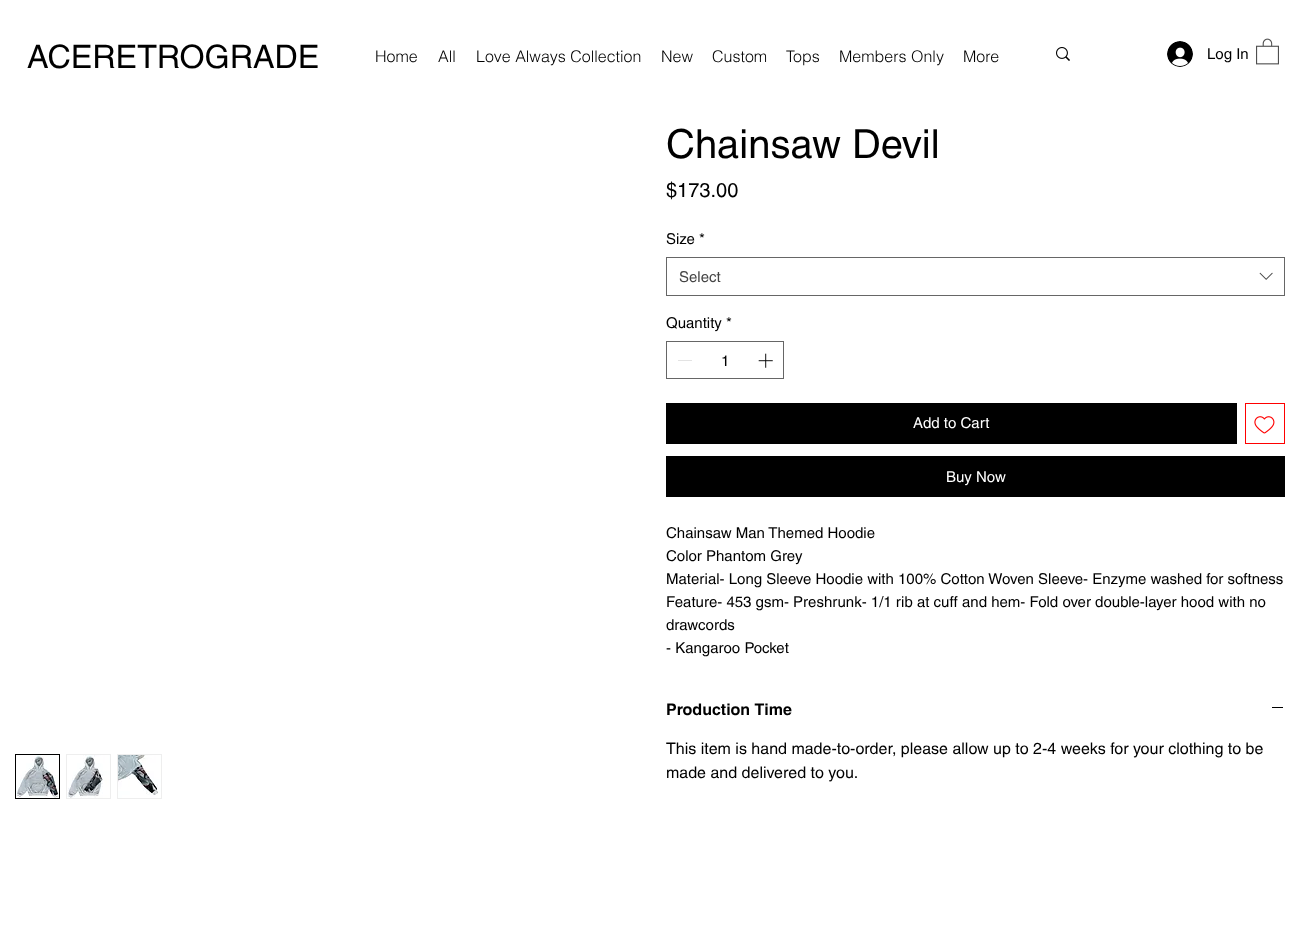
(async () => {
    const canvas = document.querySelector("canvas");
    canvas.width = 1300;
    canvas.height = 932;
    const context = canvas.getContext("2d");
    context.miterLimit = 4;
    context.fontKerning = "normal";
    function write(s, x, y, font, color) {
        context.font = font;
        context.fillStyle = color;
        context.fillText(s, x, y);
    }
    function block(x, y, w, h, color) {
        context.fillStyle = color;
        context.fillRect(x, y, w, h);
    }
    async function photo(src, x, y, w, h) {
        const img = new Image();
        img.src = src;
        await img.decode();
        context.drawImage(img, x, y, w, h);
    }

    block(0, 0, 1300, 932, "rgb(255, 255, 255)");
    write("ACERETROGRADE", 27, 68, "32.25px helvetica", "rgb(0, 0, 0)");
    write("Home", 375, 62, "300 16px helvetica", "rgb(0, 0, 0)");
    write("All", 438, 62, "300 16px helvetica", "rgb(0, 0, 0)");
    write("Love Always Collection", 476, 62, "300 16px helvetica", "rgb(0, 0, 0)");
    write("New", 661, 62, "300 16px helvetica", "rgb(0, 0, 0)");
    write("Custom", 712, 62, "300 16px helvetica", "rgb(0, 0, 0)");
    write("Tops", 786, 62, "300 16px helvetica", "rgb(0, 0, 0)");
    write("Members Only", 839, 62, "300 16px helvetica", "rgb(0, 0, 0)");
    write("More", 963, 62, "300 16px helvetica", "rgb(0, 0, 0)");
    await photo("media/1.png", 1056, 47, 14, 14);
    await photo("media/2.png", 1167, 41, 26, 26);
    write("Log In", 1207, 59, "15px helvetica", "rgb(0, 0, 0)");
    await photo("media/3.png", 1256, 38, 23, 27);
    context.strokeStyle = "rgb(0, 0, 0)";
    context.strokeRect(15.5, 754.5, 44, 44);
    await photo("media/4.png", 16, 755, 43, 43);
    block(66, 754, 45, 45, "rgb(238, 238, 238)");
    await photo("media/5.png", 67, 755, 43, 43);
    block(117, 754, 45, 45, "rgb(238, 238, 238)");
    await photo("media/6.png", 118, 755, 43, 43);
    write("Chainsaw Devil", 666, 158, "40px helvetica", "rgb(0, 0, 0)");
    write("$173.00", 666, 197, "20px helvetica", "rgb(0, 0, 0)");
    write("Size *", 666, 244, "15px helvetica", "rgb(0, 0, 0)");
    context.strokeStyle = "rgb(102, 102, 102)";
    context.strokeRect(666.5, 257.5, 618, 38);
    write("Select", 679, 282, "15px helvetica", "rgb(68, 68, 68)");
    await photo("media/7.png", 1259, 272, 14, 8);
    write("Quantity *", 666, 328, "15px helvetica", "rgb(0, 0, 0)");
    context.strokeRect(666.5, 341.5, 117, 37);
    block(678, 360, 14, 1, "rgb(227, 227, 227)");
    write("1", 721, 366, "15px helvetica", "rgb(0, 0, 0)");
    await photo("media/8.png", 758, 353, 15, 15);
    block(666, 403, 571, 41, "rgb(0, 0, 0)");
    write("Add to Cart", 913, 428, "15px helvetica", "rgb(255, 255, 255)");
    context.strokeStyle = "rgb(255, 0, 0)";
    context.strokeRect(1245.5, 403.5, 39, 40);
    await photo("media/9.png", 1254, 416, 21, 18);
    block(666, 456, 619, 41, "rgb(0, 0, 0)");
    write("Buy Now", 946, 482, "15px helvetica", "rgb(255, 255, 255)");
    write("Chainsaw Man Themed Hoodie", 666, 538, "15px helvetica", "rgb(0, 0, 0)");
    write("Color Phantom Grey", 666, 561, "15px helvetica", "rgb(0, 0, 0)");
    write("Material- Long Sleeve Hoodie with 100% Cotton Woven Sleeve- Enzyme washed for softness", 666, 584, "15px helvetica", "rgb(0, 0, 0)");
    write("Feature- 453 gsm- Preshrunk- 1/1 rib at cuff and hem- Fold over double-layer hood with no", 666, 607, "15px helvetica", "rgb(0, 0, 0)");
    write("drawcords", 666, 630, "15px helvetica", "rgb(0, 0, 0)");
    write("- Kangaroo Pocket", 666, 653, "15px helvetica", "rgb(0, 0, 0)");
    write("Production Time", 666, 715, "bold 16px helvetica", "rgb(0, 0, 0)");
    block(1272, 707, 11, 1, "rgb(0, 0, 0)");
    write("This item is hand made-to-order, please allow up to 2-4 weeks for your clothing to be", 666, 754, "16px helvetica", "rgb(0, 0, 0)");
    write("made and delivered to you.", 666, 778, "16px helvetica", "rgb(0, 0, 0)");
})();
